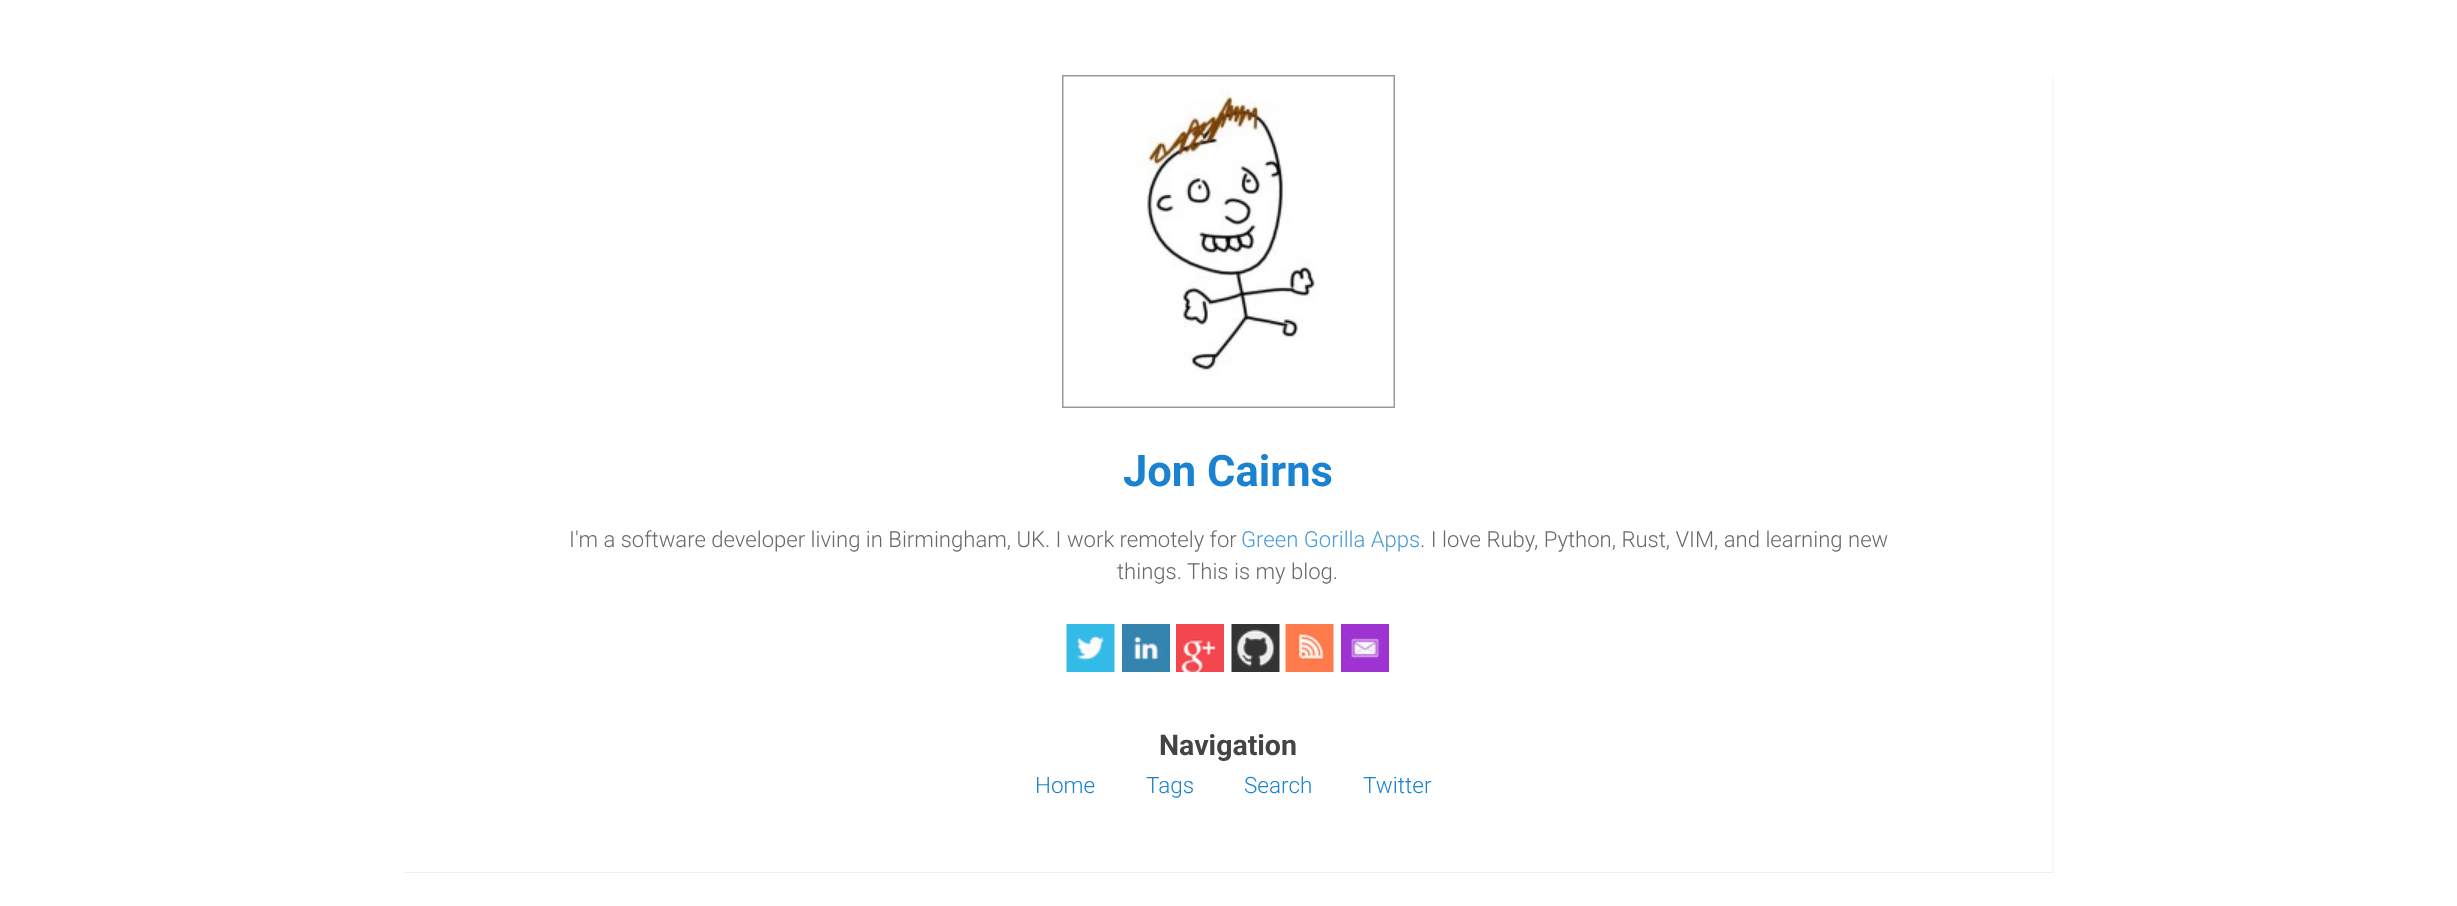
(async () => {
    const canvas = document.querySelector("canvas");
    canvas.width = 2457;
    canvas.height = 906;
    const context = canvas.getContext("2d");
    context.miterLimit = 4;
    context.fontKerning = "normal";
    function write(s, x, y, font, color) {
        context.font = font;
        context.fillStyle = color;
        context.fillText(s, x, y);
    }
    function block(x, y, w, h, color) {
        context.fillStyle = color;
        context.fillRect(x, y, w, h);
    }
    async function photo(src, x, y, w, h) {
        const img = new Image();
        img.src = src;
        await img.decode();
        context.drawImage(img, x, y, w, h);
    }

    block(0, 0, 2457, 906, "rgb(255, 255, 255)");
    context.fillStyle = "rgb(248, 249, 253)";
    context.beginPath();
    context.moveTo(2054, 75);
    context.lineTo(2054, 873);
    context.lineTo(2052, 872);
    context.lineTo(2052, 75);
    context.closePath();
    context.fill();
    context.fillStyle = "rgb(238, 238, 238)";
    context.beginPath();
    context.moveTo(2054, 873);
    context.lineTo(404, 873);
    context.lineTo(404, 872);
    context.lineTo(2052, 872);
    context.closePath();
    context.fill();
    context.strokeStyle = "rgb(153, 153, 153)";
    context.lineWidth = 2;
    context.strokeRect(1063, 76, 331, 331);
    await photo("media/1.png", 1063, 76, 331, 331);
    write("Jon Cairns", 1123, 486, "bold 43.5px Roboto", "rgb(25, 130, 209)");
    write("I'm a software developer living in Birmingham, UK. I work remotely for", 569, 547, "300 22.1px Roboto", "rgb(105, 105, 105)");
    write("Green Gorilla Apps", 1241, 547, "300 22.1px Roboto", "rgb(71, 155, 218)");
    write(". I love Ruby, Python, Rust, VIM, and learning new", 1420, 547, "300 22.1px Roboto", "rgb(105, 105, 105)");
    write("things. This is my blog.", 1117, 579, "300 22.1px Roboto", "rgb(105, 105, 105)");
    await photo("media/2.png", 1066, 624, 49, 48);
    await photo("media/3.png", 1122, 624, 48, 48);
    await photo("media/4.png", 1176, 624, 48, 48);
    await photo("media/5.png", 1231, 624, 49, 48);
    await photo("media/6.png", 1285, 624, 49, 48);
    await photo("media/7.png", 1341, 624, 48, 48);
    write("Navigation", 1159, 755, "bold 28.5px Roboto", "rgb(68, 68, 68)");
    write("Home", 1035, 793, "300 22.5px Roboto", "rgb(25, 130, 209)");
    write("Tags", 1146, 793, "300 22.5px Roboto", "rgb(25, 130, 209)");
    write("Search", 1244, 793, "300 22.5px Roboto", "rgb(25, 130, 209)");
    write("Twitter", 1363, 793, "300 22.5px Roboto", "rgb(25, 130, 209)");
})();
